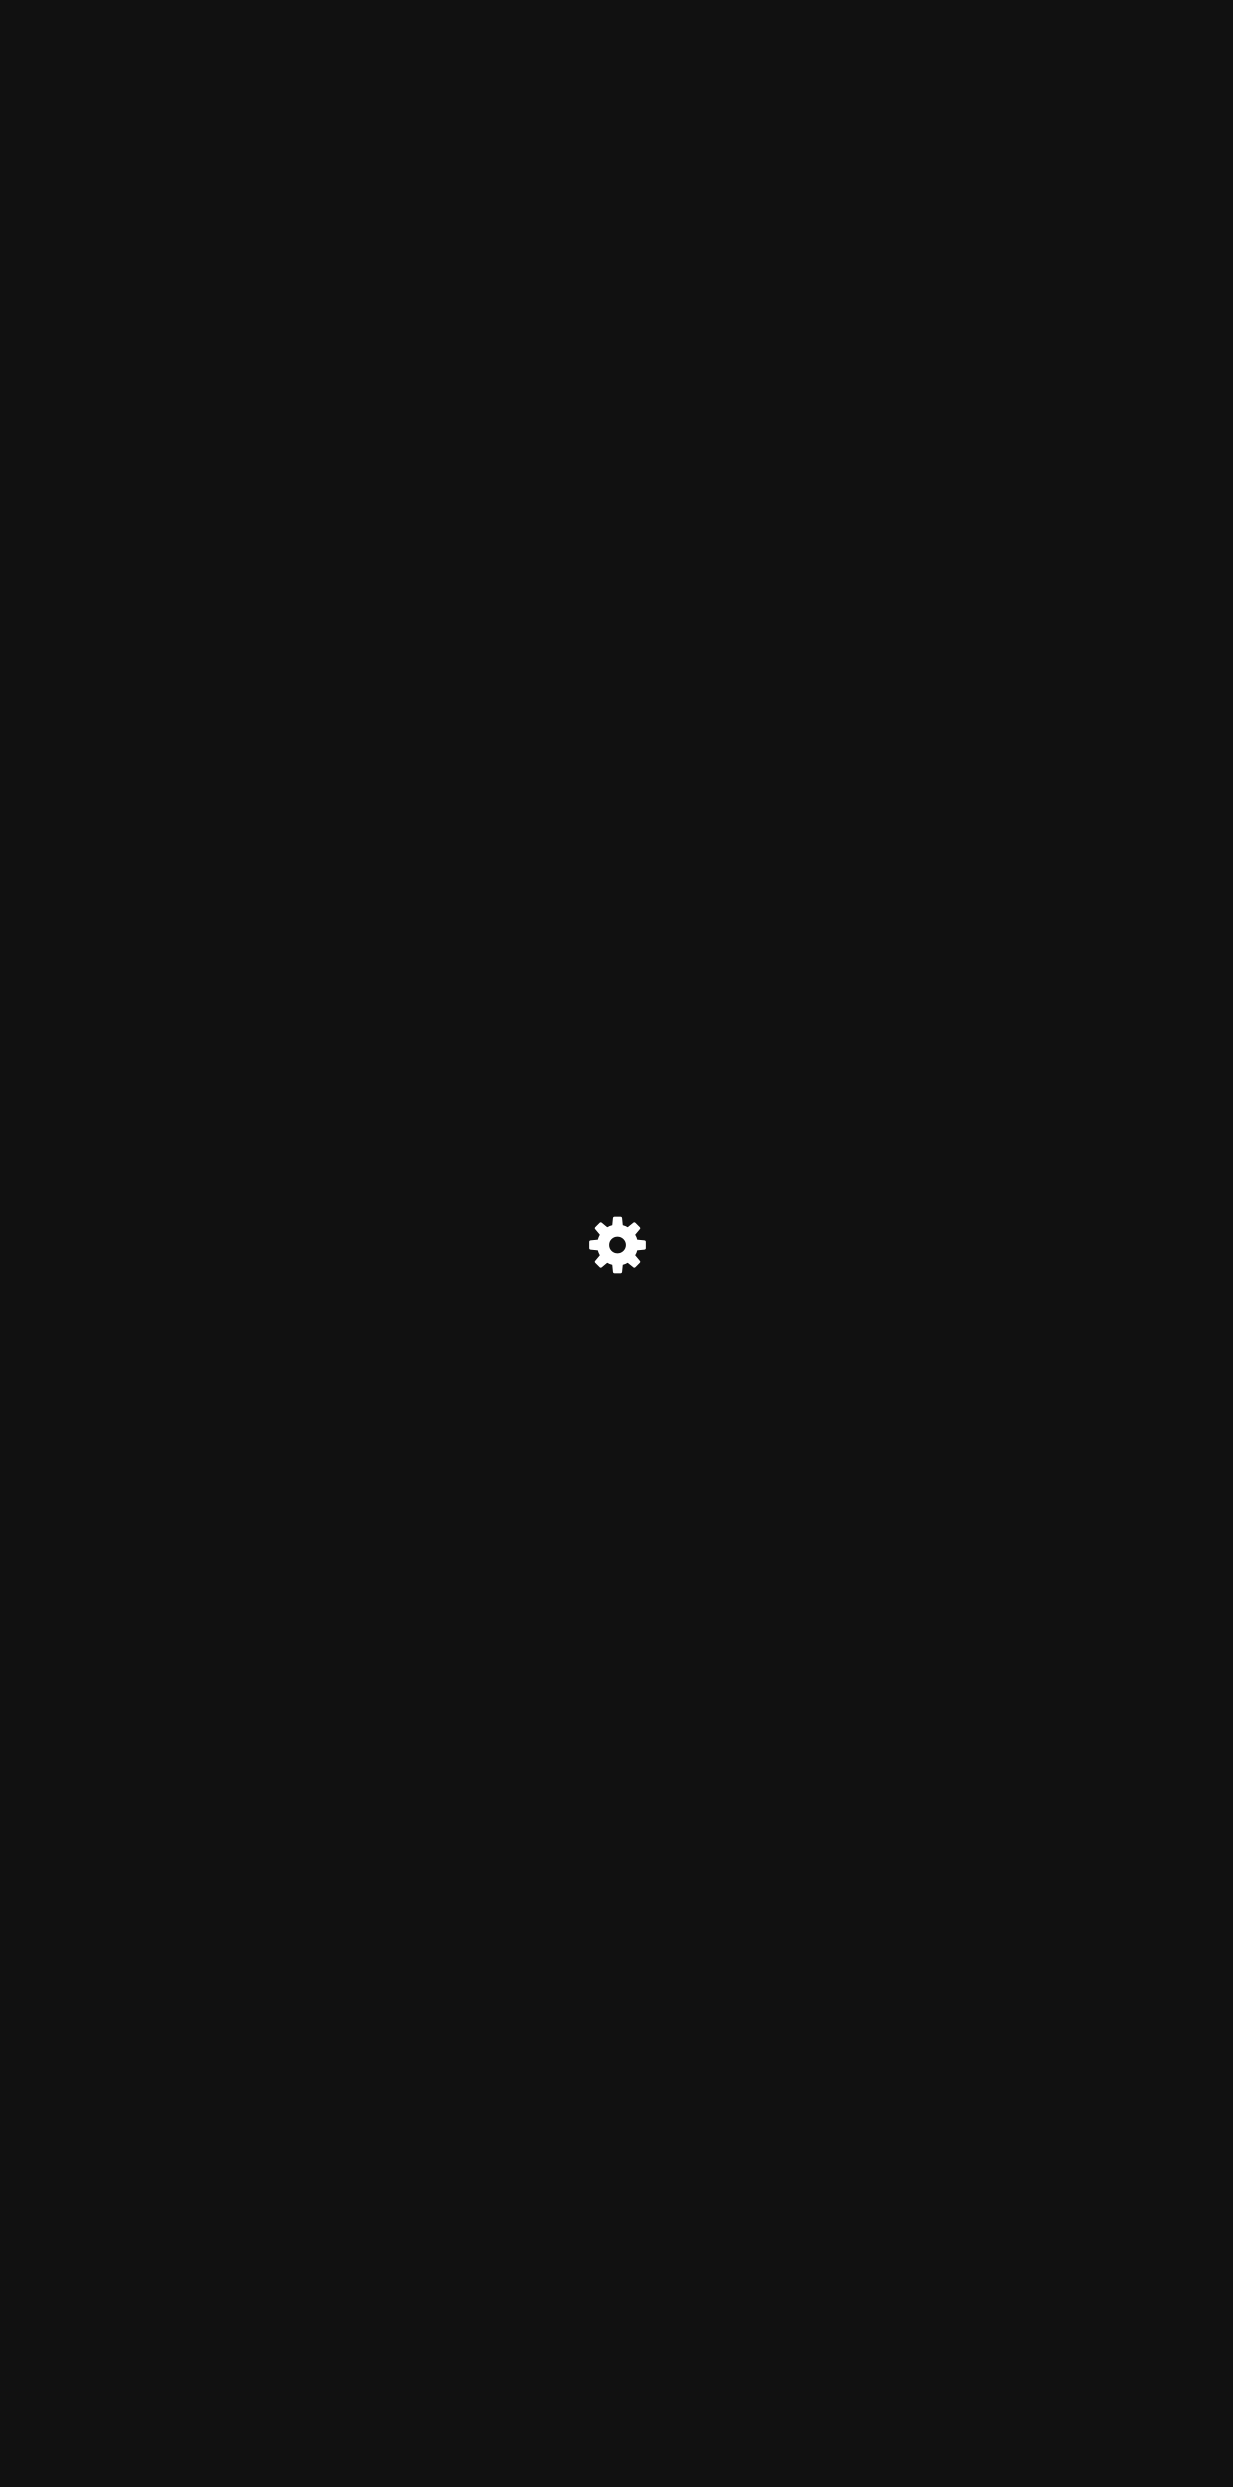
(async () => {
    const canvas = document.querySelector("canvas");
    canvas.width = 1233;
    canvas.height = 2487;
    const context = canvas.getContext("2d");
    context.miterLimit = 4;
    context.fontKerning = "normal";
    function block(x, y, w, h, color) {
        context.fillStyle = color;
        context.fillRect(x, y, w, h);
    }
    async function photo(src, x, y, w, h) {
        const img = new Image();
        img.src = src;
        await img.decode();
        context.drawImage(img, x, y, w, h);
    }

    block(0, 0, 1233, 2487, "rgb(17, 17, 17)");
    await photo("media/1.png", 589, 1216, 57, 58);
})();
